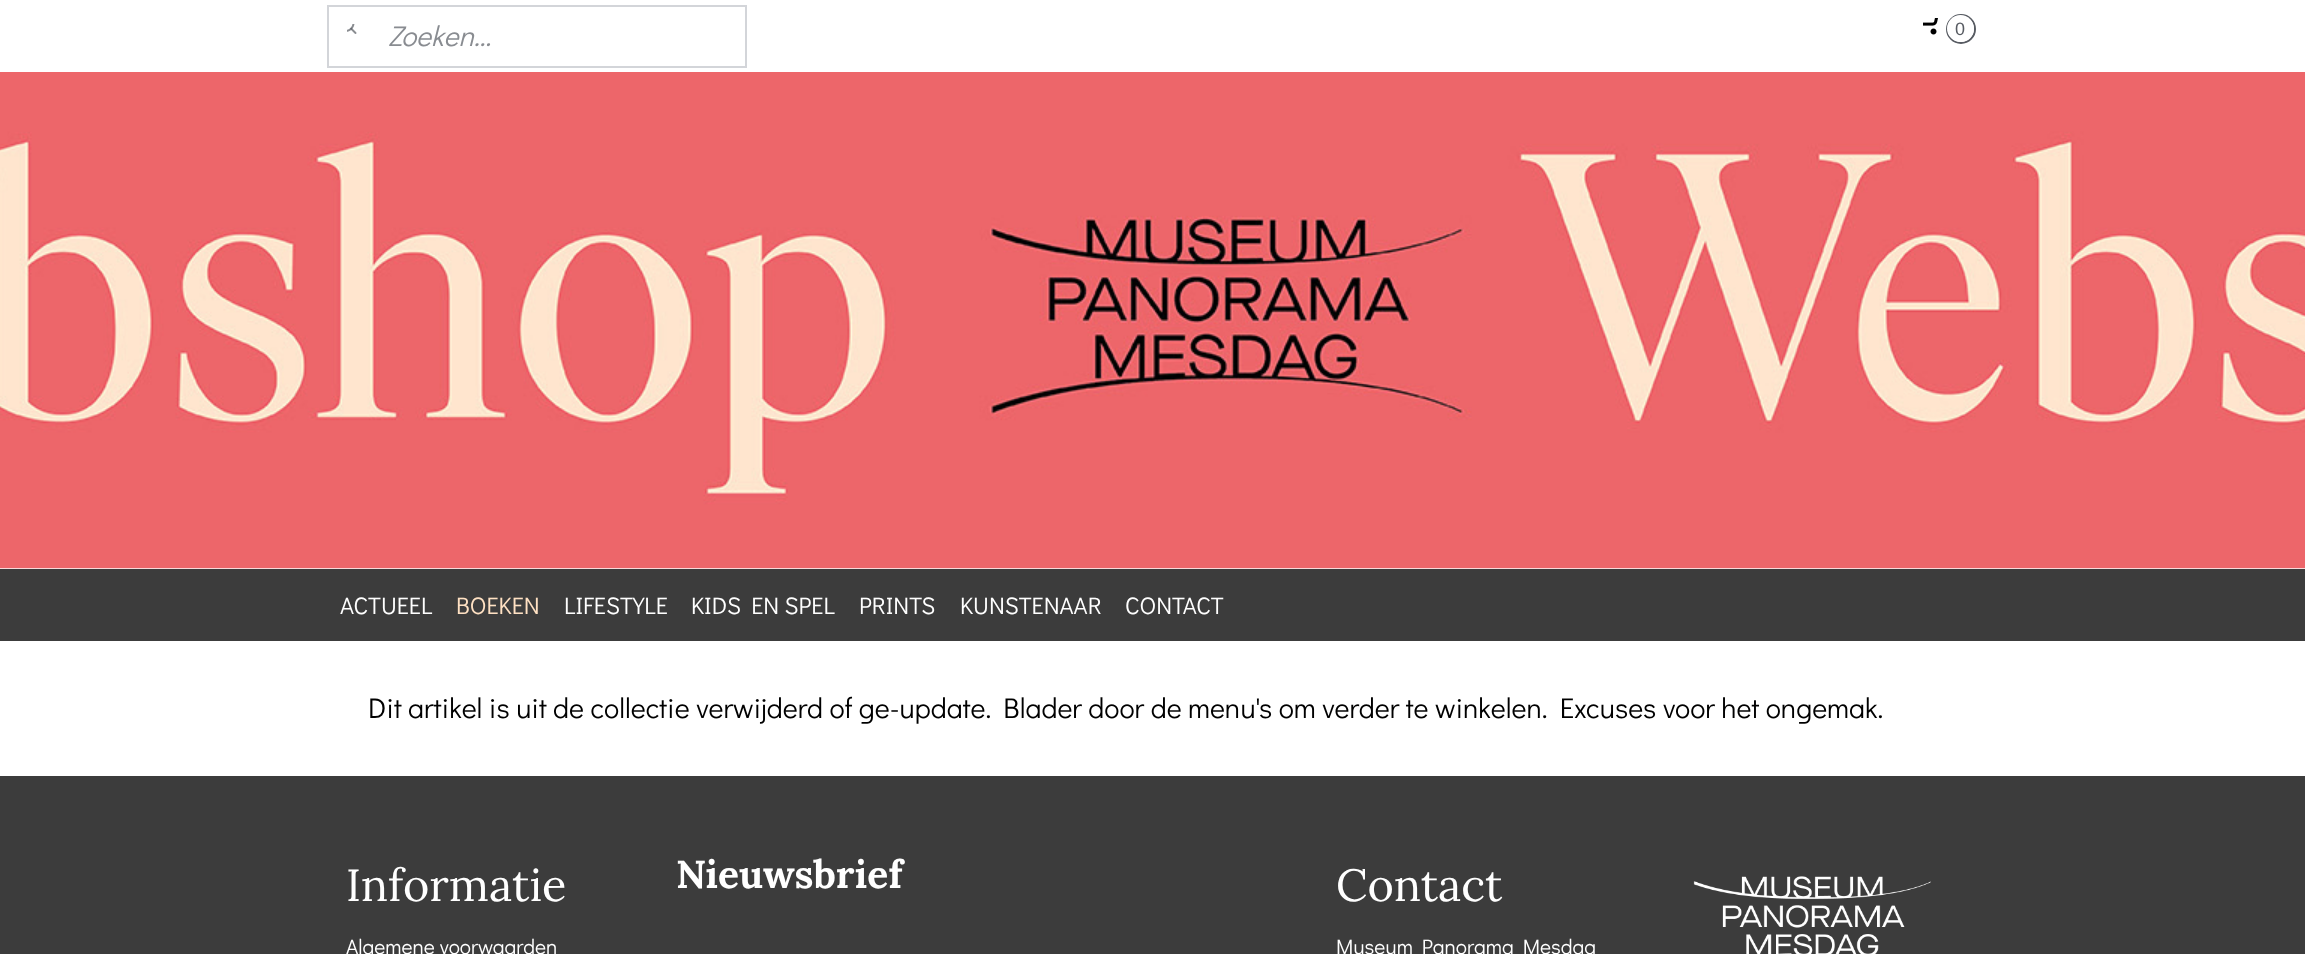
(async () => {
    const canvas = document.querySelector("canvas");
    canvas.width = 2305;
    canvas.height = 954;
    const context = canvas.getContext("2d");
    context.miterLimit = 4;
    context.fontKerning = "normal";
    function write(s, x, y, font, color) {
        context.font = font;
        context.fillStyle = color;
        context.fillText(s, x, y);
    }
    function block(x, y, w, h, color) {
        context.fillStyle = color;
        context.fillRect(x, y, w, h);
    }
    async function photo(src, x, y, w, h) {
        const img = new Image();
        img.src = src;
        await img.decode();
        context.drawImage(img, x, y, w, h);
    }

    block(0, 0, 2305, 954, "rgb(255, 255, 255)");
    context.strokeStyle = "rgb(211, 213, 217)";
    context.lineWidth = 2;
    context.strokeRect(328, 6, 418, 61);
    await photo("media/1.png", 347, 24, 10, 10);
    write("Zoeken...", 388, 46, "italic 28.5px Didact Gothic", "rgb(137, 140, 145)");
    await photo("media/2.png", 1923, 18, 15, 17);
    context.beginPath();
    context.arc(1961, 29, 14, 0, Math.PI * 2);
    context.strokeStyle = "rgb(87, 91, 98)";
    context.stroke();
    context.fillStyle = "rgb(255, 255, 255)";
    context.beginPath();
    context.arc(1960.5, 28.5, 13.5, 0, Math.PI * 2);
    context.fill();
    write("0", 1955, 35, "18px Liberation Sans", "rgb(87, 91, 98)");
    await photo("media/3.png", 0, 72, 2305, 497);
    block(0, 569, 2305, 72, "rgb(60, 60, 60)");
    write("ACTUEEL", 340, 614, "24px Didact Gothic", "rgb(255, 255, 255)");
    write("BOEKEN", 456, 614, "24px Didact Gothic", "rgb(255, 225, 195)");
    write("LIFESTYLE", 564, 614, "24px Didact Gothic", "rgb(255, 255, 255)");
    write("KIDS EN SPEL", 691, 614, "24px Didact Gothic", "rgb(255, 255, 255)");
    write("PRINTS", 859, 614, "24px Didact Gothic", "rgb(255, 255, 255)");
    write("KUNSTENAAR", 960, 614, "24px Didact Gothic", "rgb(255, 255, 255)");
    write("CONTACT", 1125, 614, "24px Didact Gothic", "rgb(255, 255, 255)");
    write("Dit artikel is uit de collectie verwijderd of ge-update. Blader door de menu's om verder te winkelen. Excuses voor het ongemak.", 368, 718, "28.5px Didact Gothic", "rgb(0, 0, 0)");
    block(0, 776, 2305, 178, "rgb(60, 60, 60)");
    write("Informatie", 346, 901, "45px Lora", "rgb(255, 255, 255)");
    write("Algemene voorwaarden", 346, 954, "21px Didact Gothic", "rgb(255, 255, 255)");
    write("Nieuwsbrief", 676, 888, "bold 39px Lora", "rgb(255, 255, 255)");
    write("Contact", 1336, 901, "45px Lora", "rgb(255, 255, 255)");
    write("Museum Panorama Mesdag", 1336, 954, "21px Didact Gothic", "rgb(255, 255, 255)");
    await photo("media/4.png", 1693, 876, 238, 78);
})();
